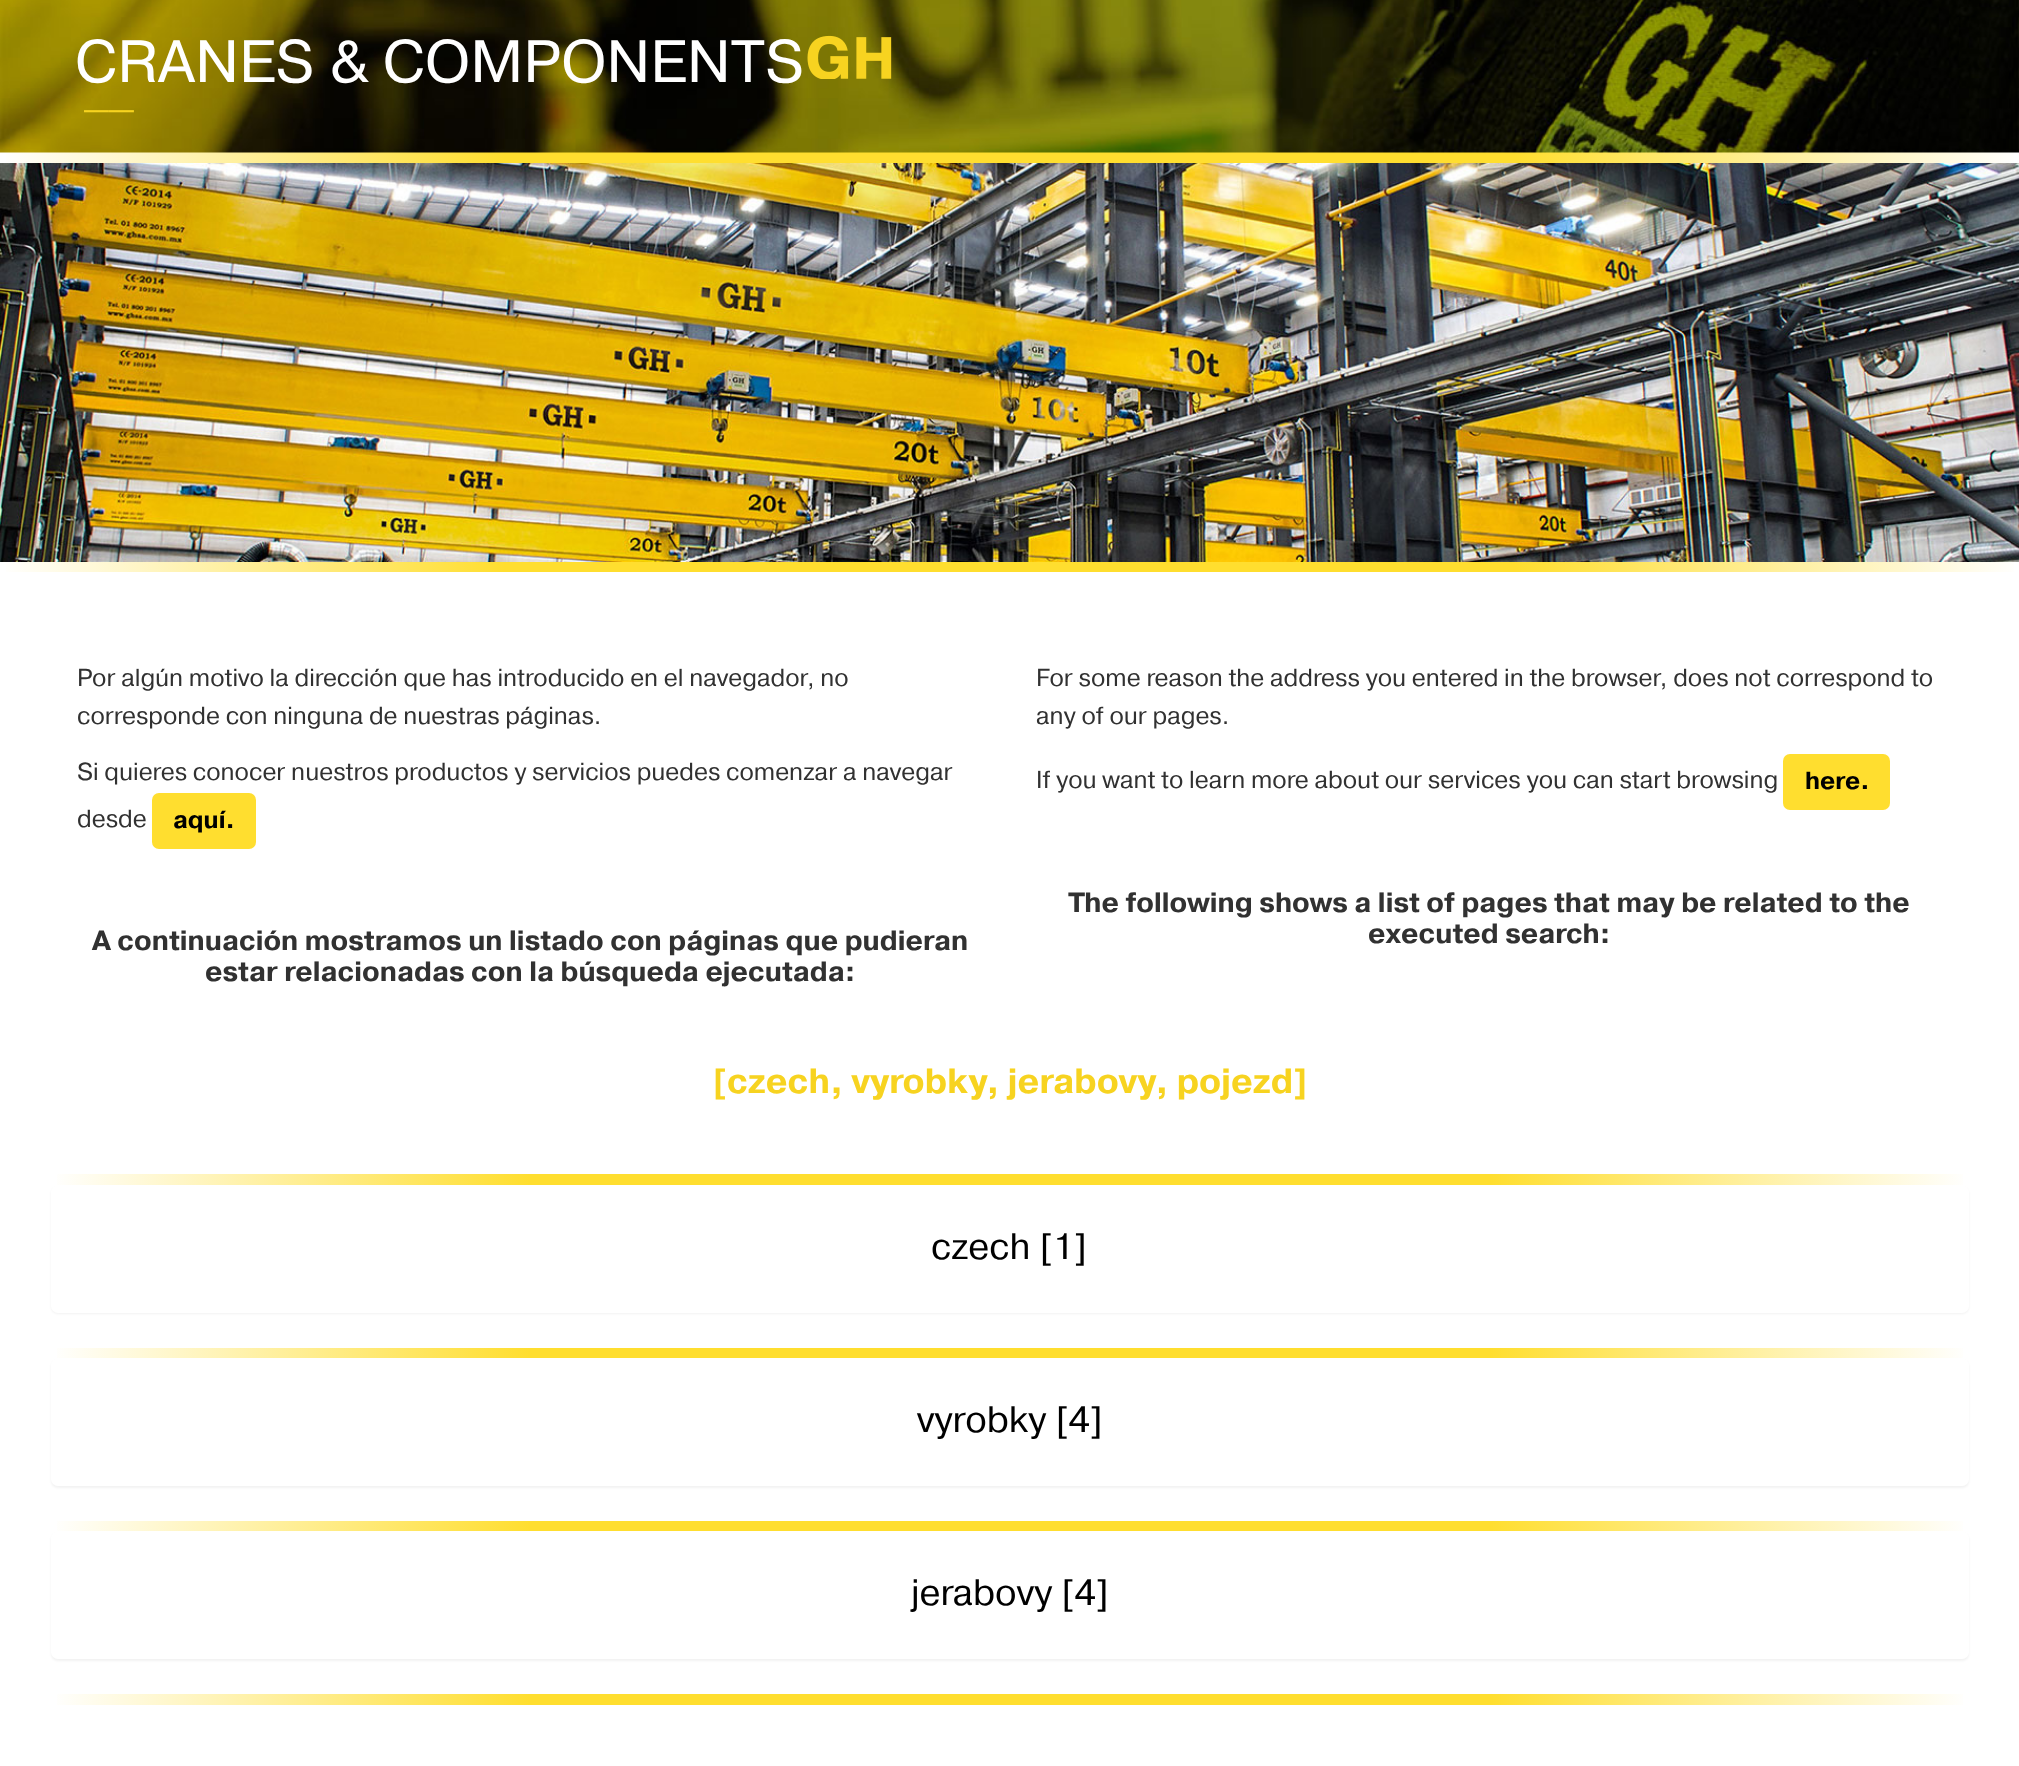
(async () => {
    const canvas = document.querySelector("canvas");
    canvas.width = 2019;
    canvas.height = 1766;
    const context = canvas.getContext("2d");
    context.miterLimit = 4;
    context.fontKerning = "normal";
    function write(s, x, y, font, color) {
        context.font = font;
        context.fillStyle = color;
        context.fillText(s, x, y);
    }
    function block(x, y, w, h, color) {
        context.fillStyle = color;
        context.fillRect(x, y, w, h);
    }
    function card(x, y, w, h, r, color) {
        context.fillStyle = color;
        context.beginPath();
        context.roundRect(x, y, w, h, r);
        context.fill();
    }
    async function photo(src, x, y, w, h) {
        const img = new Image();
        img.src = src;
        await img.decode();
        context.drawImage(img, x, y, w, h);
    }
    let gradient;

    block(0, 0, 2019, 1766, "rgb(255, 255, 255)");
    gradient = context.createLinearGradient(0, 158, 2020, 157);
    gradient.addColorStop(0, "rgb(255, 255, 255)");
    gradient.addColorStop(0.25, "rgb(255, 222, 47)");
    gradient.addColorStop(0.75, "rgb(255, 222, 47)");
    gradient.addColorStop(1, "rgb(255, 255, 255)");
    context.fillStyle = gradient;
    context.fillRect(6, 152, 2008, 11);
    await photo("media/1.png", 0, 0, 2019, 153);
    write("CRANES & COMPONENTS", 75, 82, "59.5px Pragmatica", "rgb(255, 255, 255)");
    await photo("media/2.png", 807, 35, 85, 44);
    write("__", 84, 103, "300 50px Pragmatica", "rgb(247, 211, 32)");
    await photo("media/3.png", 0, 163, 2019, 399);
    gradient = context.createLinearGradient(0, 567, 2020, 567);
    gradient.addColorStop(0, "rgb(255, 255, 255)");
    gradient.addColorStop(0.25, "rgb(255, 222, 47)");
    gradient.addColorStop(0.75, "rgb(255, 222, 47)");
    gradient.addColorStop(1, "rgb(255, 255, 255)");
    context.fillStyle = gradient;
    context.fillRect(6, 562, 2008, 10);
    write("Por algún motivo la dirección que has introducido en el navegador, no", 77, 686, "24.5px Pragmatica", "rgb(49, 49, 49)");
    write("corresponde con ninguna de nuestras páginas.", 77, 724, "24.5px Pragmatica", "rgb(49, 49, 49)");
    write("Si quieres conocer nuestros productos y servicios puedes comenzar a navegar", 77, 780, "24.5px Pragmatica", "rgb(49, 49, 49)");
    write("desde", 77, 827, "24.5px Pragmatica", "rgb(49, 49, 49)");
    card(152, 793, 104, 56, 7, "rgb(255, 222, 47)");
    write("aquí.", 173, 828, "bold 24.5px Pragmatica", "rgb(0, 0, 0)");
    write("A continuación mostramos un listado con páginas que pudieran", 92, 950, "bold 28px Pragmatica", "rgb(49, 49, 49)");
    write("estar relacionadas con la búsqueda ejecutada:", 205, 981, "bold 28px Pragmatica", "rgb(49, 49, 49)");
    write("For some reason the address you entered in the browser, does not correspond to", 1036, 686, "24.5px Pragmatica", "rgb(49, 49, 49)");
    write("any of our pages.", 1036, 724, "24.5px Pragmatica", "rgb(49, 49, 49)");
    write("If you want to learn more about our services you can start browsing", 1036, 788, "24.5px Pragmatica", "rgb(49, 49, 49)");
    card(1783, 754, 107, 56, 7, "rgb(255, 222, 47)");
    write("here.", 1805, 789, "bold 24.5px Pragmatica", "rgb(0, 0, 0)");
    write("The following shows a list of pages that may be related to the", 1068, 912, "bold 28px Pragmatica", "rgb(49, 49, 49)");
    write("executed search:", 1368, 943, "bold 28px Pragmatica", "rgb(49, 49, 49)");
    write("[czech, vyrobky, jerabovy, pojezd]", 712, 1093, "bold 35px Pragmatica", "rgb(247, 211, 32)");
    gradient = context.createLinearGradient(51, 1180, 1969, 1180);
    gradient.addColorStop(0, "rgb(255, 255, 255)");
    gradient.addColorStop(0.25, "rgb(255, 222, 47)");
    gradient.addColorStop(0.75, "rgb(255, 222, 47)");
    gradient.addColorStop(1, "rgb(255, 255, 255)");
    context.fillStyle = gradient;
    context.fillRect(57, 1174, 1906, 11);
    context.fillStyle = "rgba(0, 0, 0, 0.05)";
    context.filter = "blur(1px)";
    context.beginPath();
    context.roundRect(51, 1187, 1918, 127, 7);
    context.fill();
    context.filter = "none";
    card(51, 1185, 1918, 128, 7, "rgb(255, 255, 255)");
    write("czech [1]", 931, 1259, "36.75px Pragmatica", "rgb(0, 0, 0)");
    gradient = context.createLinearGradient(51, 1353, 1969, 1353);
    gradient.addColorStop(0, "rgb(255, 255, 255)");
    gradient.addColorStop(0.25, "rgb(255, 222, 47)");
    gradient.addColorStop(0.75, "rgb(255, 222, 47)");
    gradient.addColorStop(1, "rgb(255, 255, 255)");
    context.fillStyle = gradient;
    context.fillRect(57, 1348, 1906, 10);
    context.fillStyle = "rgba(0, 0, 0, 0.05)";
    context.filter = "blur(1px)";
    context.beginPath();
    context.roundRect(51, 1360, 1918, 128, 7);
    context.fill();
    context.filter = "none";
    card(51, 1358, 1918, 128, 7, "rgb(255, 255, 255)");
    write("vyrobky [4]", 917, 1432, "36.75px Pragmatica", "rgb(0, 0, 0)");
    gradient = context.createLinearGradient(51, 1526, 1969, 1526);
    gradient.addColorStop(0, "rgb(255, 255, 255)");
    gradient.addColorStop(0.25, "rgb(255, 222, 47)");
    gradient.addColorStop(0.75, "rgb(255, 222, 47)");
    gradient.addColorStop(1, "rgb(255, 255, 255)");
    context.fillStyle = gradient;
    context.fillRect(57, 1521, 1906, 10);
    context.fillStyle = "rgba(0, 0, 0, 0.05)";
    context.filter = "blur(1px)";
    context.beginPath();
    context.roundRect(51, 1533, 1918, 128, 7);
    context.fill();
    context.filter = "none";
    card(51, 1531, 1918, 128, 7, "rgb(255, 255, 255)");
    write("jerabovy [4]", 911, 1605, "36.75px Pragmatica", "rgb(0, 0, 0)");
    gradient = context.createLinearGradient(51, 1699, 1969, 1699);
    gradient.addColorStop(0, "rgb(255, 255, 255)");
    gradient.addColorStop(0.25, "rgb(255, 222, 47)");
    gradient.addColorStop(0.75, "rgb(255, 222, 47)");
    gradient.addColorStop(1, "rgb(255, 255, 255)");
    context.fillStyle = gradient;
    context.fillRect(57, 1694, 1906, 11);
})();
